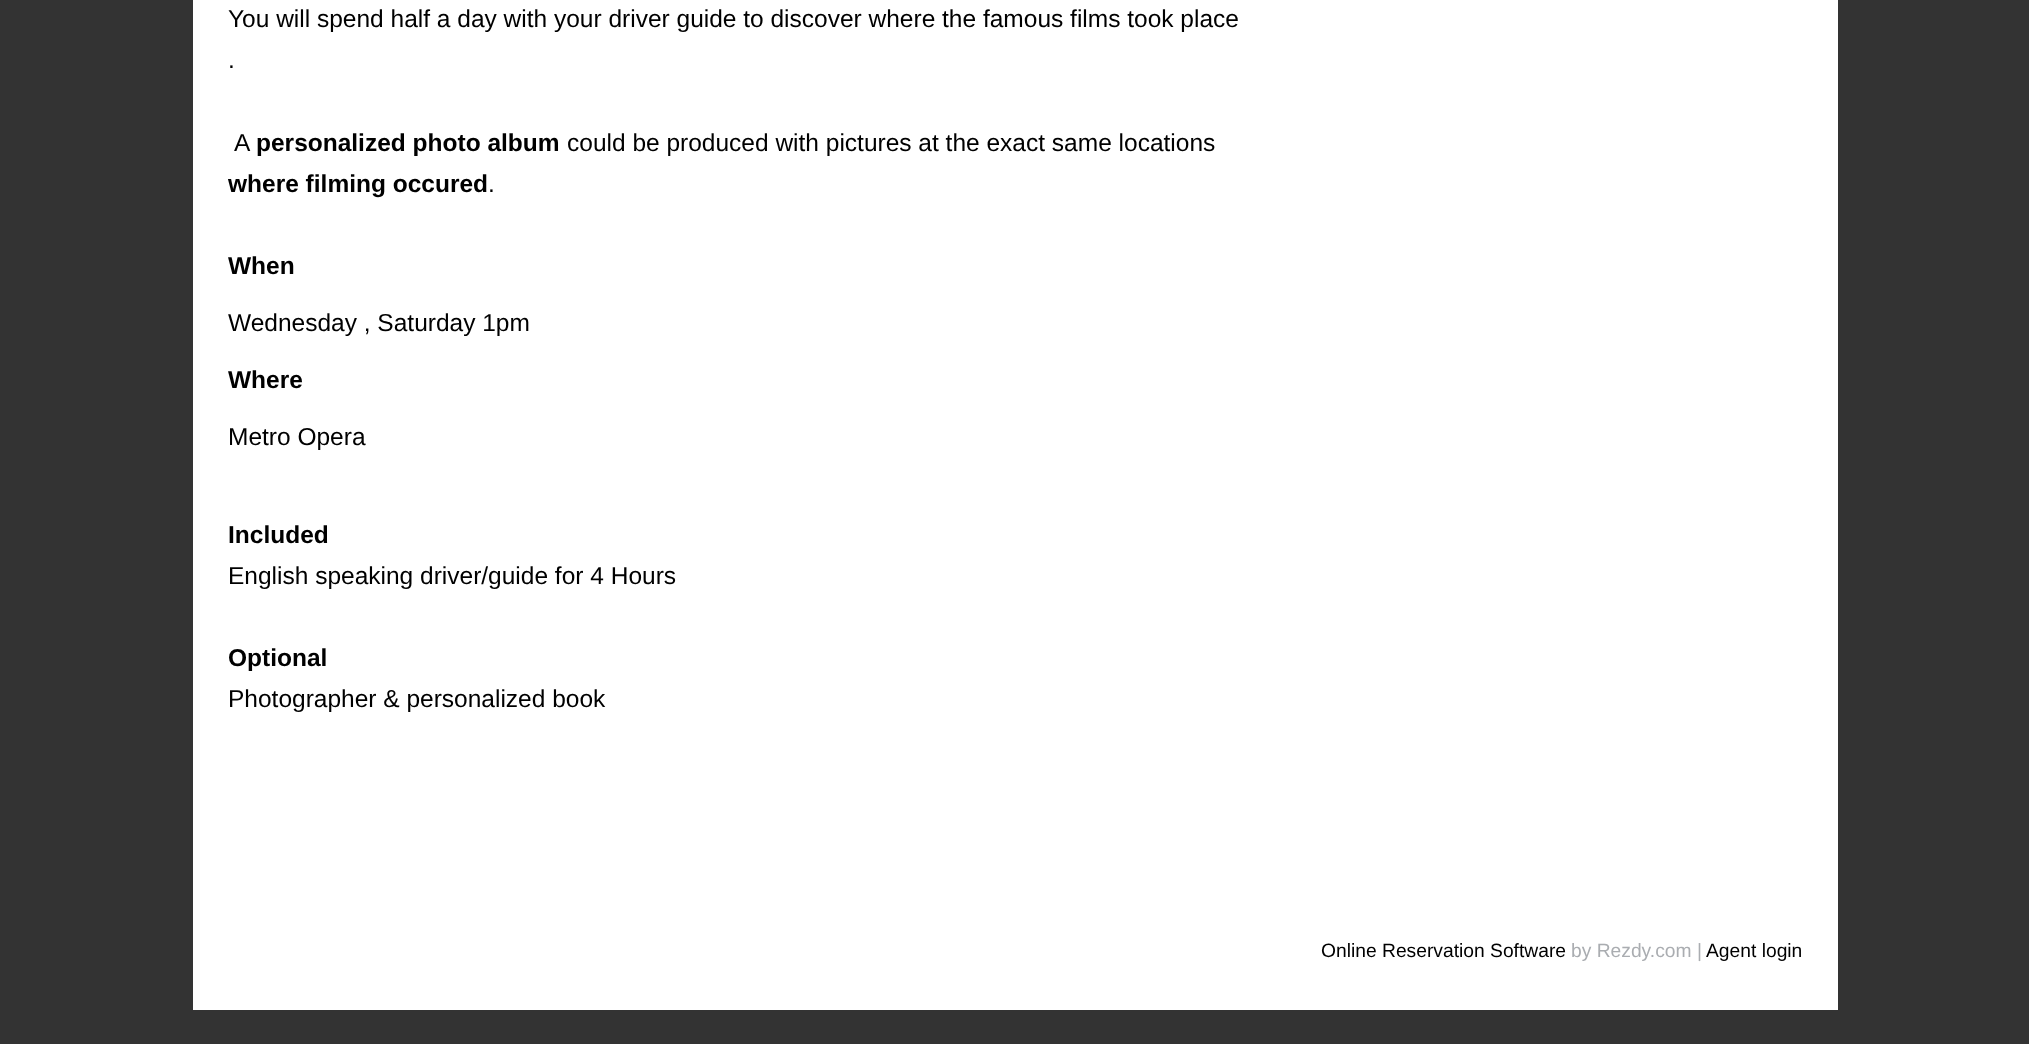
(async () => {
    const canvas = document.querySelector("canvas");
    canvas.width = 2029;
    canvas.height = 1044;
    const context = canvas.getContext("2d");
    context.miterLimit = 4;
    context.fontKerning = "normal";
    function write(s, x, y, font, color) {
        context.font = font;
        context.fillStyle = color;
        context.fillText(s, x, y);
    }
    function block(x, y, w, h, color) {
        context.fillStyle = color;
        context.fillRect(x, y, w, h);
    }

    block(0, 0, 2029, 1044, "rgb(51, 51, 51)");
    block(193, 0, 1645, 1010, "rgb(255, 255, 255)");
    write("You will spend half a day with your driver guide to discover where the famous films took place", 228, 27, "24.5px Liberation Sans", "rgb(0, 0, 0)");
    write(".", 228, 68, "24.5px Liberation Sans", "rgb(0, 0, 0)");
    write("A", 234, 151, "24.5px Liberation Sans", "rgb(0, 0, 0)");
    write("personalized photo album", 256, 151, "bold 24.5px Liberation Sans", "rgb(0, 0, 0)");
    write("could be produced with pictures at the exact same locations", 567, 151, "24.5px Liberation Sans", "rgb(0, 0, 0)");
    write("where filming occured", 228, 192, "bold 24.5px Liberation Sans", "rgb(0, 0, 0)");
    write(".", 488, 192, "24.5px Liberation Sans", "rgb(0, 0, 0)");
    write("When", 228, 274, "bold 24.5px Liberation Sans", "rgb(0, 0, 0)");
    write("Wednesday , Saturday 1pm", 228, 331, "24.5px Liberation Sans", "rgb(0, 0, 0)");
    write("Where", 228, 388, "bold 24.5px Liberation Sans", "rgb(0, 0, 0)");
    write("Metro Opera", 228, 445, "24.5px Liberation Sans", "rgb(0, 0, 0)");
    write("Included", 228, 543, "bold 24.5px Liberation Sans", "rgb(0, 0, 0)");
    write("English speaking driver/guide for 4 Hours", 228, 584, "24.5px Liberation Sans", "rgb(0, 0, 0)");
    write("Optional", 228, 666, "bold 24.5px Liberation Sans", "rgb(0, 0, 0)");
    write("Photographer & personalized book", 228, 707, "24.5px Liberation Sans", "rgb(0, 0, 0)");
    write("Online Reservation Software", 1321, 957, "19.25px Liberation Sans", "rgb(0, 0, 0)");
    write("by Rezdy.com |", 1571, 957, "19.25px Liberation Sans", "rgb(170, 173, 177)");
    write("Agent login", 1706, 957, "19.25px Liberation Sans", "rgb(0, 0, 0)");
})();
